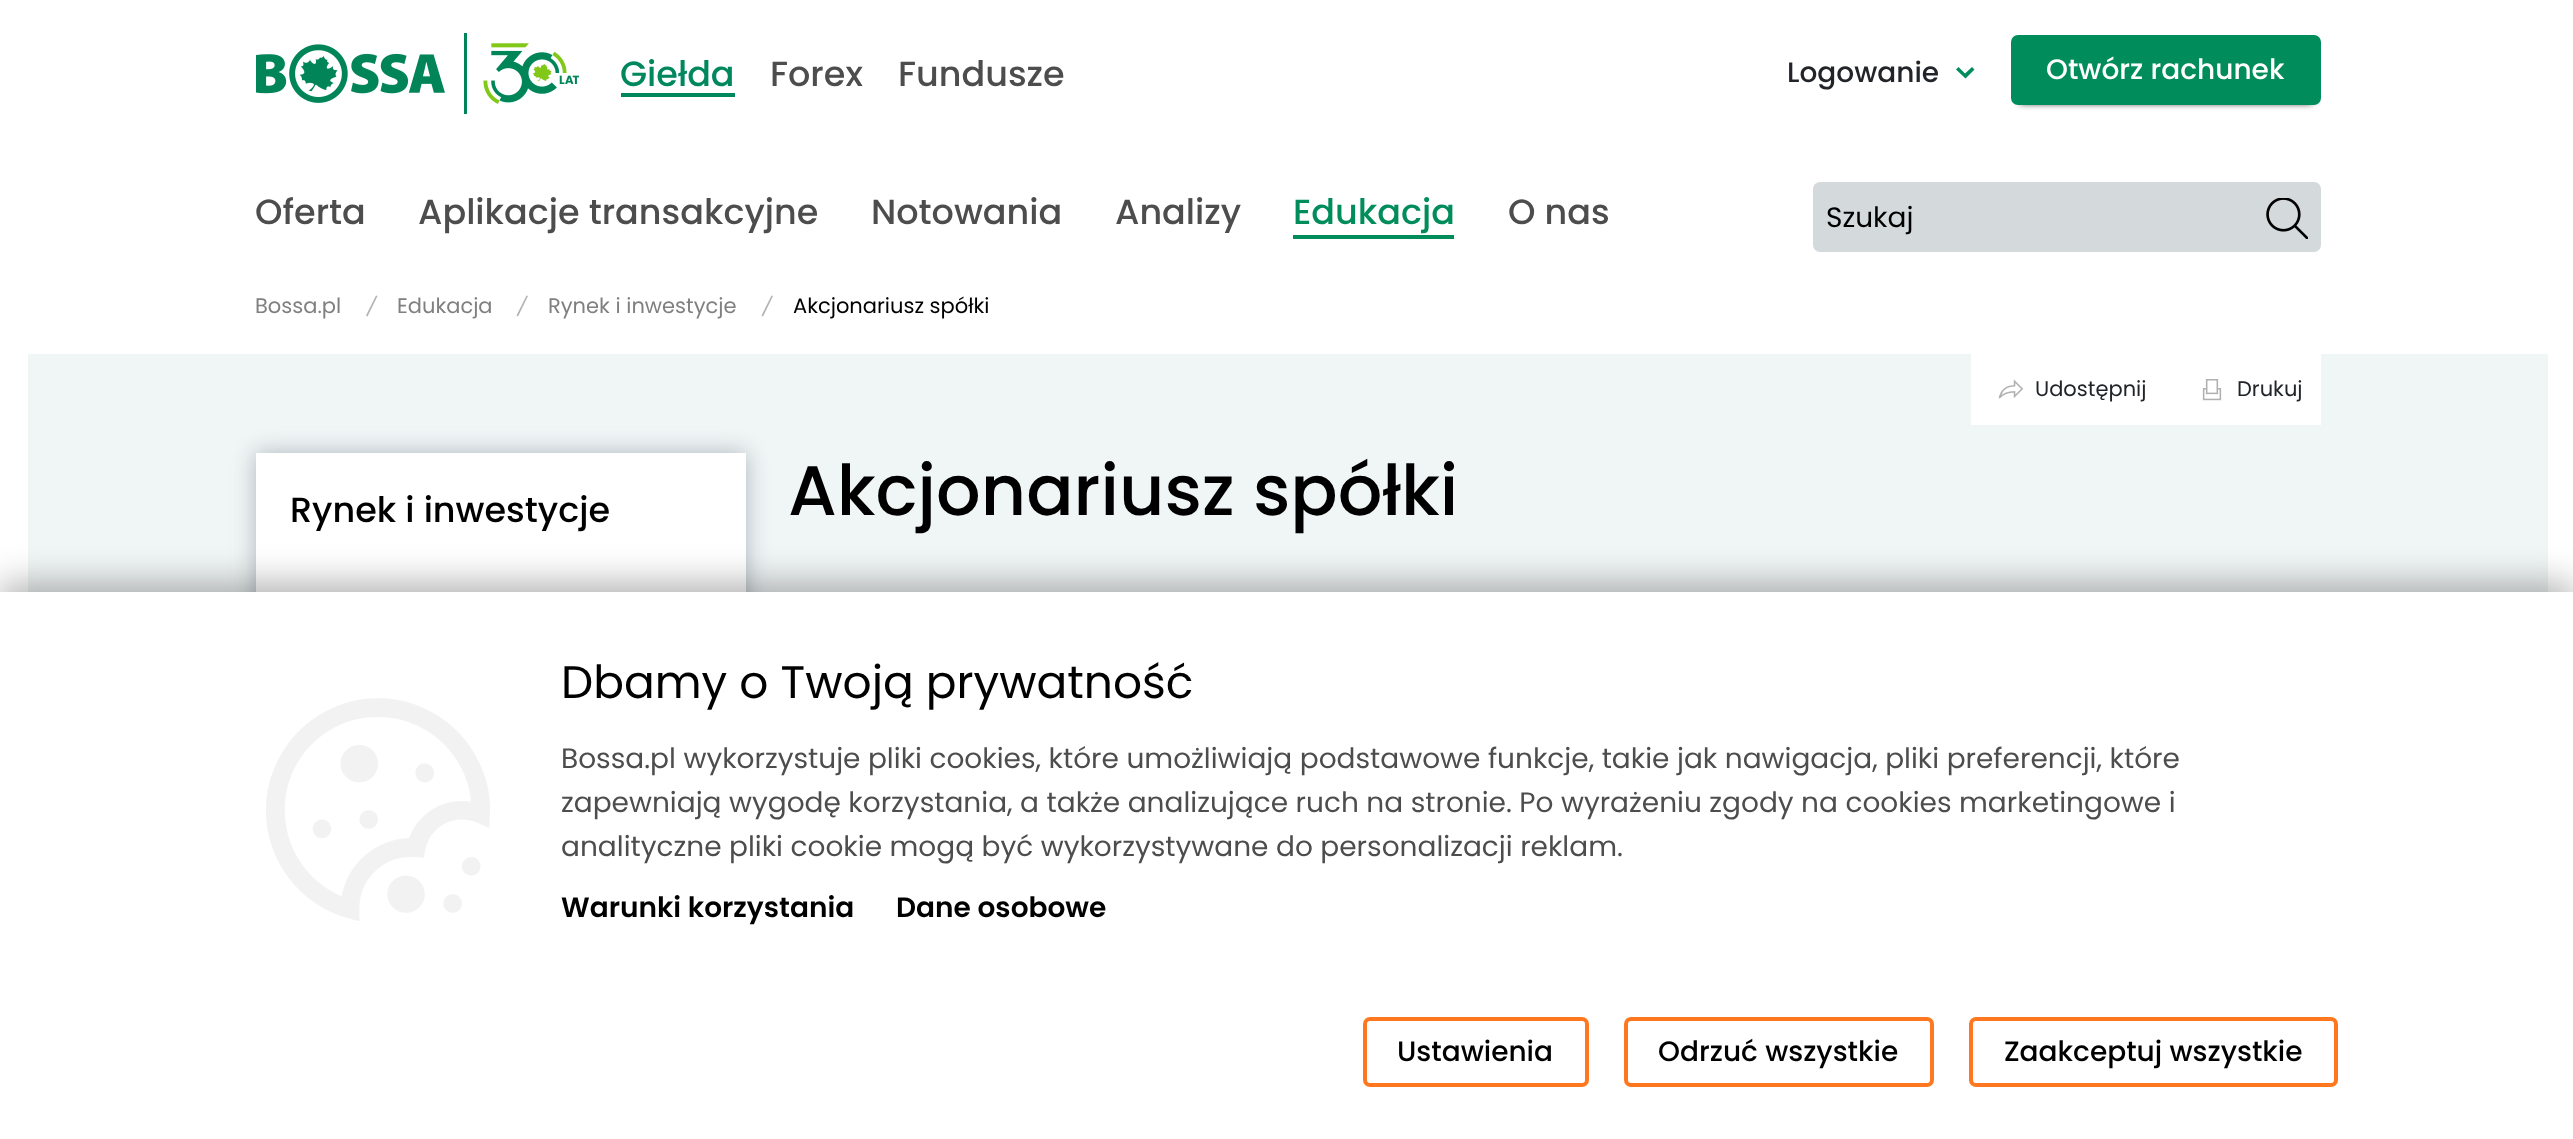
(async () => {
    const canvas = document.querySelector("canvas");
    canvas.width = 2573;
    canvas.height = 1139;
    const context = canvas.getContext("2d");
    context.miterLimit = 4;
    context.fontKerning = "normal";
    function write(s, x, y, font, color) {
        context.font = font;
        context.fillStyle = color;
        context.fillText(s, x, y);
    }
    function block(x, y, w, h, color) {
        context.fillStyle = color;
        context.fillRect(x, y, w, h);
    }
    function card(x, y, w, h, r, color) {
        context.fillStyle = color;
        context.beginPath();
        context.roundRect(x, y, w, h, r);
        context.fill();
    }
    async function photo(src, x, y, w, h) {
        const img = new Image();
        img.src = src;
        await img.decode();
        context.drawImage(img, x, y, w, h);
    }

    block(0, 0, 2573, 1139, "rgb(255, 255, 255)");
    await photo("media/1.png", 256, 33, 323, 81);
    write("Giełda", 620, 86, "500 35px Poppins", "rgb(1, 135, 94)");
    block(621, 93, 114, 4, "rgb(1, 135, 94)");
    write("Forex", 770, 86, "500 35px Poppins", "rgb(77, 77, 77)");
    write("Fundusze", 898, 86, "500 35px Poppins", "rgb(77, 77, 77)");
    write("Logowanie", 1787, 82, "500 28px Poppins", "rgb(33, 37, 41)");
    context.fillStyle = "rgb(0, 141, 91)";
    context.beginPath();
    context.moveTo(1965, 73.5);
    context.lineTo(1972, 67);
    context.lineTo(1974.5, 69.5);
    context.lineTo(1965.5, 78.5);
    context.lineTo(1956, 69.5);
    context.lineTo(1958.5, 67);
    context.closePath();
    context.fill();
    context.fillStyle = "rgb(0, 0, 0)";
    context.filter = "blur(3.5px)";
    context.beginPath();
    context.rect(2020, 51, 292, 52);
    context.fill();
    context.filter = "none";
    context.fillStyle = "rgb(0, 141, 91)";
    context.beginPath();
    context.roundRect(2013, 37, 306, 66, 5);
    context.fill();
    context.strokeStyle = "rgb(0, 141, 91)";
    context.lineWidth = 4;
    context.stroke();
    write("Otwórz rachunek", 2046, 79, "500 28px Poppins", "rgb(255, 255, 255)");
    write("Oferta", 255, 224, "500 35px Poppins", "rgb(77, 77, 77)");
    write("Aplikacje transakcyjne", 418, 224, "500 35px Poppins", "rgb(77, 77, 77)");
    write("Notowania", 871, 224, "500 35px Poppins", "rgb(77, 77, 77)");
    write("Analizy", 1115, 224, "500 35px Poppins", "rgb(77, 77, 77)");
    write("Edukacja", 1293, 224, "500 35px Poppins", "rgb(0, 141, 91)");
    block(1293, 235, 161, 4, "rgb(0, 141, 91)");
    write("O nas", 1508, 224, "500 35px Poppins", "rgb(77, 77, 77)");
    card(1813, 182, 508, 70, 7, "rgb(212, 218, 219)");
    write("Szukaj", 1826, 227, "28px Poppins", "rgb(0, 0, 0)");
    await photo("media/2.png", 2266, 198, 42, 41);
    block(28, 354, 2520, 238, "rgb(240, 245, 245)");
    context.save();
    context.beginPath();
    context.rect(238, 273, 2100, 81);
    context.clip();
    context.fillStyle = "rgb(255, 255, 255)";
    context.filter = "blur(4.5px)";
    context.beginPath();
    context.rect(221, 247, 35, 133);
    context.fill();
    context.filter = "none";
    context.restore();
    write("Bossa.pl", 255, 313, "21px Poppins", "rgb(128, 128, 128)");
    context.fillStyle = "rgb(179, 179, 179)";
    context.beginPath();
    context.moveTo(376, 295.5);
    context.lineTo(366, 315.5);
    context.lineTo(367.5, 316.5);
    context.lineTo(377.5, 296);
    context.closePath();
    context.fill();
    write("Edukacja", 397, 313, "21px Poppins", "rgb(128, 128, 128)");
    context.fillStyle = "rgb(179, 179, 179)";
    context.beginPath();
    context.moveTo(526.5, 295.5);
    context.lineTo(516.5, 315.5);
    context.lineTo(518, 316.5);
    context.lineTo(528, 296);
    context.closePath();
    context.fill();
    write("Rynek i inwestycje", 548, 313, "21px Poppins", "rgb(128, 128, 128)");
    context.fillStyle = "rgb(179, 179, 179)";
    context.beginPath();
    context.moveTo(771.5, 295.5);
    context.lineTo(761.5, 315.5);
    context.lineTo(763, 316.5);
    context.lineTo(773, 296);
    context.closePath();
    context.fill();
    write("Akcjonariusz spółki", 793, 313, "21px Poppins", "rgb(0, 0, 0)");
    block(1971, 354, 350, 71, "rgb(255, 255, 255)");
    await photo("media/3.png", 1998, 379, 25, 20);
    write("Udostępnij", 2035, 396, "21px Poppins", "rgb(33, 37, 41)");
    await photo("media/4.png", 2202, 379, 20, 22);
    write("Drukuj", 2237, 396, "21px Poppins", "rgb(33, 37, 41)");
    context.fillStyle = "rgb(173, 181, 189)";
    context.filter = "blur(11px)";
    context.beginPath();
    context.rect(256, 453, 490, 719);
    context.fill();
    context.filter = "none";
    block(256, 453, 490, 139, "rgb(255, 255, 255)");
    write("Rynek i inwestycje", 290, 522, "500 35px Poppins", "rgb(0, 0, 0)");
    write("Akcjonariusz spółki", 788, 515, "500 70px Poppins", "rgb(0, 0, 0)");
    context.fillStyle = "rgba(0, 0, 0, 0.3)";
    context.filter = "blur(17.5px)";
    context.beginPath();
    context.rect(0, 583, 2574, 548);
    context.fill();
    context.filter = "none";
    block(0, 592, 2573, 547, "rgb(255, 255, 255)");
    write("Dbamy o Twoją prywatność", 561, 698, "45.5px Poppins", "rgb(0, 0, 0)");
    await photo("media/5.png", 266, 698, 224, 223);
    write("Bossa.pl wykorzystuje pliki cookies, które umożliwiają podstawowe funkcje, takie jak nawigacja, pliki preferencji, które", 561, 768, "28px Poppins", "rgb(77, 77, 77)");
    write("zapewniają wygodę korzystania, a także analizujące ruch na stronie. Po wyrażeniu zgody na cookies marketingowe i", 561, 812, "28px Poppins", "rgb(77, 77, 77)");
    write("analityczne pliki cookie mogą być wykorzystywane do personalizacji reklam.", 561, 856, "28px Poppins", "rgb(77, 77, 77)");
    write("Warunki korzystania", 561, 917, "600 28px Poppins", "rgb(0, 0, 0)");
    write("Dane osobowe", 896, 917, "600 28px Poppins", "rgb(0, 0, 0)");
    context.beginPath();
    context.roundRect(1365, 1019, 222, 66, 5);
    context.strokeStyle = "rgb(255, 120, 31)";
    context.stroke();
    write("Ustawienia", 1397, 1061, "500 28px Poppins", "rgb(0, 0, 0)");
    context.beginPath();
    context.roundRect(1626, 1019, 306, 66, 5);
    context.stroke();
    write("Odrzuć wszystkie", 1658, 1061, "500 28px Poppins", "rgb(0, 0, 0)");
    context.beginPath();
    context.roundRect(1971, 1019, 365, 66, 5);
    context.stroke();
    write("Zaakceptuj wszystkie", 2004, 1061, "500 28px Poppins", "rgb(0, 0, 0)");
})();
